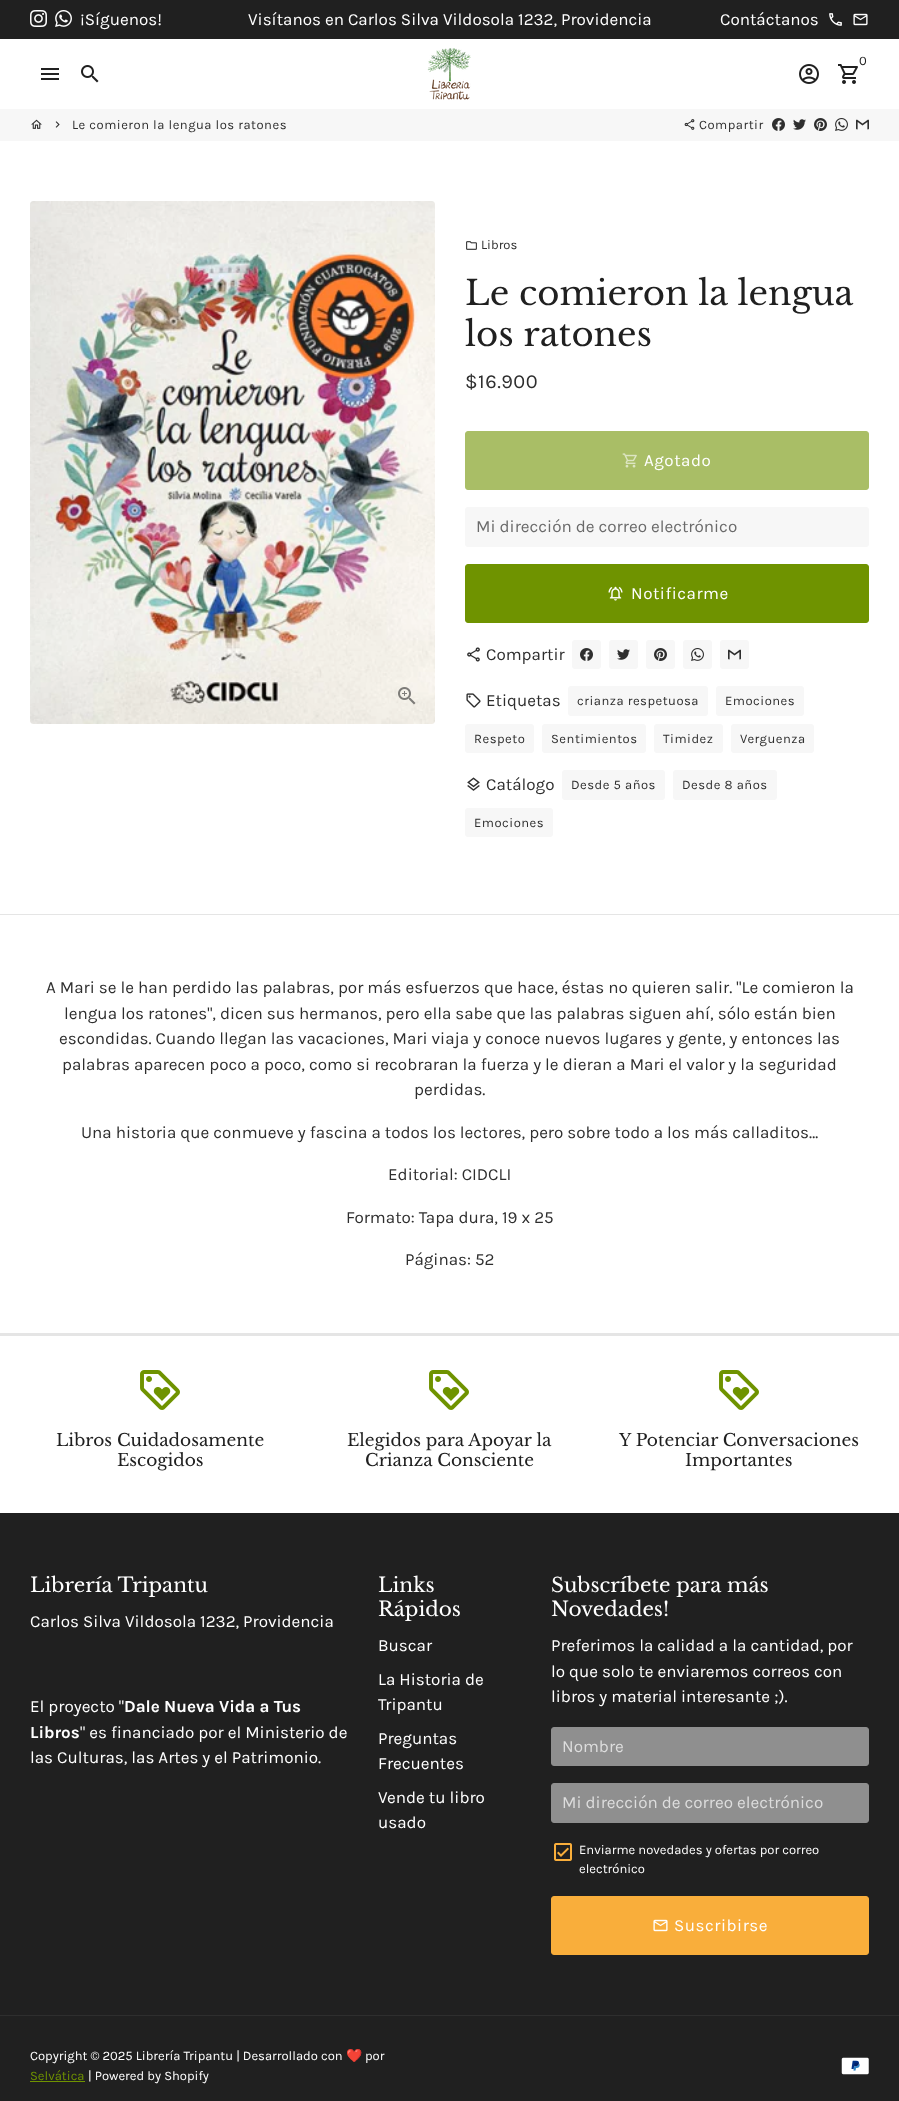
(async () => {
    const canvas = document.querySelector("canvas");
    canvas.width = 899;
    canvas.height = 2101;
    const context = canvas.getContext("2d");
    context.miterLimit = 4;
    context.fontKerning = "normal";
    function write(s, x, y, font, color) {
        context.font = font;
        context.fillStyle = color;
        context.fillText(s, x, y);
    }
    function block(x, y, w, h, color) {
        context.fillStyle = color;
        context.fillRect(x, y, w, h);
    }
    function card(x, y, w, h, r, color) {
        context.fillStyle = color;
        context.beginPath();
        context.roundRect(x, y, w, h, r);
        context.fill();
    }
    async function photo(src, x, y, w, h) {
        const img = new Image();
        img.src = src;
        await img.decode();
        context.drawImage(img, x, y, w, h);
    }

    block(0, 0, 899, 2101, "rgb(255, 255, 255)");
    block(0, 0, 899, 39, "rgb(32, 32, 32)");
    await photo("media/1.png", 30, 10, 17, 17);
    await photo("media/2.png", 55, 10, 17, 17);
    write("¡Síguenos!", 80, 25, "17px Karla", "rgb(255, 255, 255)");
    write("Visítanos en Carlos Silva Vildosola 1232, Providencia", 248, 25, "17px Karla", "rgb(255, 255, 255)");
    write("Contáctanos", 720, 25, "17px Karla", "rgb(255, 255, 255)");
    await photo("media/3.png", 829, 13, 13, 13);
    await photo("media/4.png", 853, 13, 15, 13);
    await photo("media/5.png", 427, 48, 44, 52);
    write("0", 859, 65, "13px Karla", "rgb(32, 32, 32)");
    await photo("media/6.png", 838, 64, 20, 20);
    await photo("media/7.png", 799, 64, 20, 20);
    await photo("media/8.png", 41, 68, 18, 12);
    await photo("media/9.png", 81, 65, 18, 18);
    block(0, 109, 899, 32, "rgb(247, 247, 247)");
    await photo("media/10.png", 31, 119, 11, 10);
    await photo("media/11.png", 55, 121, 5, 7);
    context.letterSpacing = "0.5px";
    write("Le comieron la lengua los ratones", 72, 129, "13px Karla", "rgb(46, 46, 46)");
    await photo("media/12.png", 684, 119, 11, 11);
    write("Compartir", 699, 129, "13px Karla", "rgb(46, 46, 46)");
    await photo("media/13.png", 772, 118, 13, 13);
    await photo("media/14.png", 793, 119, 13, 11);
    await photo("media/15.png", 814, 118, 13, 13);
    await photo("media/16.png", 835, 118, 13, 13);
    await photo("media/17.png", 856, 119, 13, 11);
    await photo("media/18.png", 30, 201, 405, 523);
    await photo("media/19.png", 398, 687, 18, 18);
    await photo("media/20.png", 466, 241, 11, 9);
    context.letterSpacing = "0px";
    write("Libros", 481, 249, "13px Karla", "rgb(46, 46, 46)");
    write("Le comieron la lengua", 465, 305, "34px Libre Baskerville", "rgb(32, 32, 32)");
    write("los ratones", 465, 346, "34px Libre Baskerville", "rgb(32, 32, 32)");
    context.letterSpacing = "0.5px";
    write("$16.900", 465, 388, "20px Karla", "rgb(46, 46, 46)");
    context.fillStyle = "rgb(169, 190, 102)";
    context.beginPath();
    context.roundRect(465.5, 431.5, 403, 58, 2.5);
    context.fill();
    context.strokeStyle = "rgb(169, 190, 102)";
    context.stroke();
    await photo("media/21.png", 622, 453, 15, 15);
    write("Agotado", 644, 466, "17px Karla", "rgb(255, 255, 255)");
    card(465, 507, 404, 40, 3, "rgb(247, 247, 247)");
    context.letterSpacing = "0px";
    write("Mi dirección de correo electrónico", 476, 532, "17px Karla", "rgb(106, 106, 106)");
    context.fillStyle = "rgb(111, 147, 0)";
    context.beginPath();
    context.roundRect(465.5, 564.5, 403, 58, 2.5);
    context.fill();
    context.strokeStyle = "rgb(111, 147, 0)";
    context.stroke();
    await photo("media/22.png", 608, 586, 15, 15);
    context.letterSpacing = "0.5px";
    write("Notificarme", 631, 599, "17px Karla", "rgb(255, 255, 255)");
    await photo("media/23.png", 467, 647, 13, 15);
    context.letterSpacing = "0px";
    write("Compartir", 486, 660, "17px Karla", "rgb(46, 46, 46)");
    card(572, 640, 29, 29, 3, "rgb(247, 247, 247)");
    await photo("media/13.png", 580, 648, 13, 13);
    card(609, 640, 29, 29, 3, "rgb(247, 247, 247)");
    await photo("media/14.png", 617, 649, 13, 11);
    card(646, 640, 29, 29, 3, "rgb(247, 247, 247)");
    await photo("media/15.png", 654, 648, 13, 13);
    card(683, 640, 29, 29, 3, "rgb(247, 247, 247)");
    await photo("media/16.png", 691, 648, 13, 13);
    card(720, 640, 29, 29, 3, "rgb(247, 247, 247)");
    await photo("media/17.png", 728, 649, 13, 11);
    await photo("media/24.png", 466, 693, 15, 15);
    write("Etiquetas", 486, 706, "17px Karla", "rgb(46, 46, 46)");
    card(568, 686, 140, 30, 3, "rgb(247, 247, 247)");
    context.letterSpacing = "0.5px";
    write("crianza respetuosa", 577, 705, "13px Karla", "rgb(46, 46, 46)");
    card(716, 686, 88, 30, 3, "rgb(247, 247, 247)");
    write("Emociones", 725, 705, "13px Karla", "rgb(46, 46, 46)");
    card(465, 724, 69, 29, 3, "rgb(247, 247, 247)");
    write("Respeto", 474, 743, "13px Karla", "rgb(46, 46, 46)");
    card(542, 724, 104, 29, 3, "rgb(247, 247, 247)");
    write("Sentimientos", 551, 743, "13px Karla", "rgb(46, 46, 46)");
    card(654, 724, 69, 29, 3, "rgb(247, 247, 247)");
    write("Timidez", 663, 743, "13px Karla", "rgb(46, 46, 46)");
    card(731, 724, 83, 29, 3, "rgb(247, 247, 247)");
    write("Verguenza", 740, 743, "13px Karla", "rgb(46, 46, 46)");
    await photo("media/25.png", 467, 777, 13, 14);
    context.letterSpacing = "0px";
    write("Catálogo", 486, 790, "17px Karla", "rgb(46, 46, 46)");
    card(562, 770, 103, 30, 3, "rgb(247, 247, 247)");
    context.letterSpacing = "0.5px";
    write("Desde 5 años", 571, 789, "13px Karla", "rgb(46, 46, 46)");
    card(673, 770, 104, 30, 3, "rgb(247, 247, 247)");
    write("Desde 8 años", 682, 789, "13px Karla", "rgb(46, 46, 46)");
    card(465, 808, 88, 29, 3, "rgb(247, 247, 247)");
    write("Emociones", 474, 827, "13px Karla", "rgb(46, 46, 46)");
    block(0, 914, 899, 1, "rgb(229, 229, 229)");
    context.letterSpacing = "0px";
    write("A Mari se le han perdido las palabras, por más esfuerzos que hace, éstas no quieren salir. \"Le comieron la", 46, 993, "17px Karla", "rgb(46, 46, 46)");
    write("lengua los ratones\", dicen sus hermanos, pero ella sabe que las palabras siguen ahí, sólo están bien", 64, 1019, "17px Karla", "rgb(46, 46, 46)");
    write("escondidas. Cuando llegan las vacaciones, Mari viaja y conoce nuevos lugares y gente, y entonces las", 59, 1044, "17px Karla", "rgb(46, 46, 46)");
    write("palabras aparecen poco a poco, como si recobraran la fuerza y le dieran a Mari el valor y la seguridad", 62, 1070, "17px Karla", "rgb(46, 46, 46)");
    write("perdidas.", 414, 1095, "17px Karla", "rgb(46, 46, 46)");
    write("Una historia que conmueve y fascina a todos los lectores, pero sobre todo a los más calladitos…", 81, 1138, "17px Karla", "rgb(46, 46, 46)");
    write("Editorial: CIDCLI", 388, 1180, "17px Karla", "rgb(46, 46, 46)");
    write("Formato: Tapa dura, 19 x 25", 346, 1223, "17px Karla", "rgb(46, 46, 46)");
    write("Páginas: 52", 405, 1265, "17px Karla", "rgb(46, 46, 46)");
    block(0, 1333, 899, 2, "rgb(229, 229, 229)");
    block(0, 1335, 899, 1, "rgb(229, 229, 229)");
    await photo("media/26.png", 140, 1370, 40, 40);
    write("Libros Cuidadosamente", 56, 1446, "17px Libre Baskerville", "rgb(32, 32, 32)");
    write("Escogidos", 117, 1466, "17px Libre Baskerville", "rgb(32, 32, 32)");
    await photo("media/26.png", 429, 1370, 40, 40);
    write("Elegidos para Apoyar la", 347, 1446, "17px Libre Baskerville", "rgb(32, 32, 32)");
    write("Crianza Consciente", 365, 1466, "17px Libre Baskerville", "rgb(32, 32, 32)");
    await photo("media/26.png", 719, 1370, 40, 40);
    write("Y Potenciar Conversaciones", 619, 1446, "17px Libre Baskerville", "rgb(32, 32, 32)");
    write("Importantes", 685, 1466, "17px Libre Baskerville", "rgb(32, 32, 32)");
    block(0, 1513, 899, 588, "rgb(32, 32, 32)");
    write("Librería Tripantu", 30, 1592, "20px Libre Baskerville", "rgb(255, 255, 255)");
    write("Carlos Silva Vildosola 1232, Providencia", 30, 1627, "17px Karla", "rgb(255, 255, 255)");
    write("El proyecto \"", 30, 1712, "17px Karla", "rgb(255, 255, 255)");
    write("Dale Nueva Vida a Tus", 124, 1712, "bold 17px Karla", "rgb(255, 255, 255)");
    write("Libros", 30, 1738, "bold 17px Karla", "rgb(255, 255, 255)");
    write("\" es financiado por el Ministerio de", 80, 1738, "17px Karla", "rgb(255, 255, 255)");
    write("las Culturas, las Artes y el Patrimonio.", 30, 1763, "17px Karla", "rgb(255, 255, 255)");
    write("Links", 378, 1592, "20px Libre Baskerville", "rgb(255, 255, 255)");
    write("Rápidos", 378, 1616, "20px Libre Baskerville", "rgb(255, 255, 255)");
    write("Buscar", 378, 1651, "17px Karla", "rgb(255, 255, 255)");
    write("La Historia de", 378, 1685, "17px Karla", "rgb(255, 255, 255)");
    write("Tripantu", 378, 1710, "17px Karla", "rgb(255, 255, 255)");
    write("Preguntas", 378, 1744, "17px Karla", "rgb(255, 255, 255)");
    write("Frecuentes", 378, 1769, "17px Karla", "rgb(255, 255, 255)");
    write("Vende tu libro", 378, 1803, "17px Karla", "rgb(255, 255, 255)");
    write("usado", 378, 1828, "17px Karla", "rgb(255, 255, 255)");
    write("Subscríbete para más", 551, 1592, "20px Libre Baskerville", "rgb(255, 255, 255)");
    write("Novedades!", 551, 1616, "20px Libre Baskerville", "rgb(255, 255, 255)");
    write("Preferimos la calidad a la cantidad, por", 551, 1651, "17px Karla", "rgb(255, 255, 255)");
    write("lo que solo te enviaremos correos con", 551, 1677, "17px Karla", "rgb(255, 255, 255)");
    write("libros y material interesante ;).", 551, 1702, "17px Karla", "rgb(255, 255, 255)");
    context.fillStyle = "rgb(143, 143, 143)";
    context.beginPath();
    context.roundRect(551.5, 1727.5, 317, 38, 2.5);
    context.fill();
    context.strokeStyle = "rgb(143, 143, 143)";
    context.stroke();
    write("Nombre", 562, 1752, "17px Karla", "rgb(221, 221, 221)");
    context.fillStyle = "rgb(143, 143, 143)";
    context.beginPath();
    context.roundRect(551.5, 1783.5, 317, 39, 2.5);
    context.fill();
    context.stroke();
    write("Mi dirección de correo electrónico", 562, 1808, "17px Karla", "rgb(221, 221, 221)");
    await photo("media/27.png", 554, 1843, 18, 18);
    write("Enviarme novedades y ofertas por correo", 579, 1854, "13px Karla", "rgb(255, 255, 255)");
    write("electrónico", 579, 1873, "13px Karla", "rgb(255, 255, 255)");
    context.fillStyle = "rgb(249, 174, 59)";
    context.beginPath();
    context.roundRect(551.5, 1896.5, 317, 58, 2.5);
    context.fill();
    context.strokeStyle = "rgb(249, 174, 59)";
    context.stroke();
    await photo("media/28.png", 653, 1919, 15, 13);
    context.letterSpacing = "0.5px";
    write("Suscribirse", 674, 1931, "17px Karla", "rgb(255, 255, 255)");
    block(0, 2015, 899, 1, "rgb(46, 46, 46)");
    context.letterSpacing = "0px";
    write("Copyright © 2025 Librería Tripantu | Desarrollado con", 30, 2060, "13px Karla", "rgb(255, 255, 255)");
    write("❤️", 346, 2060, "13px Noto Color Emoji", "rgb(255, 255, 255)");
    write("por", 365, 2060, "13px Karla", "rgb(255, 255, 255)");
    write("Selvática", 30, 2080, "13px Karla", "rgb(111, 147, 0)");
    block(30, 2081, 55, 1, "rgb(111, 147, 0)");
    write("| Powered by Shopify", 88, 2080, "13px Karla", "rgb(255, 255, 255)");
    await photo("media/29.png", 841, 2057, 28, 18);
})();
